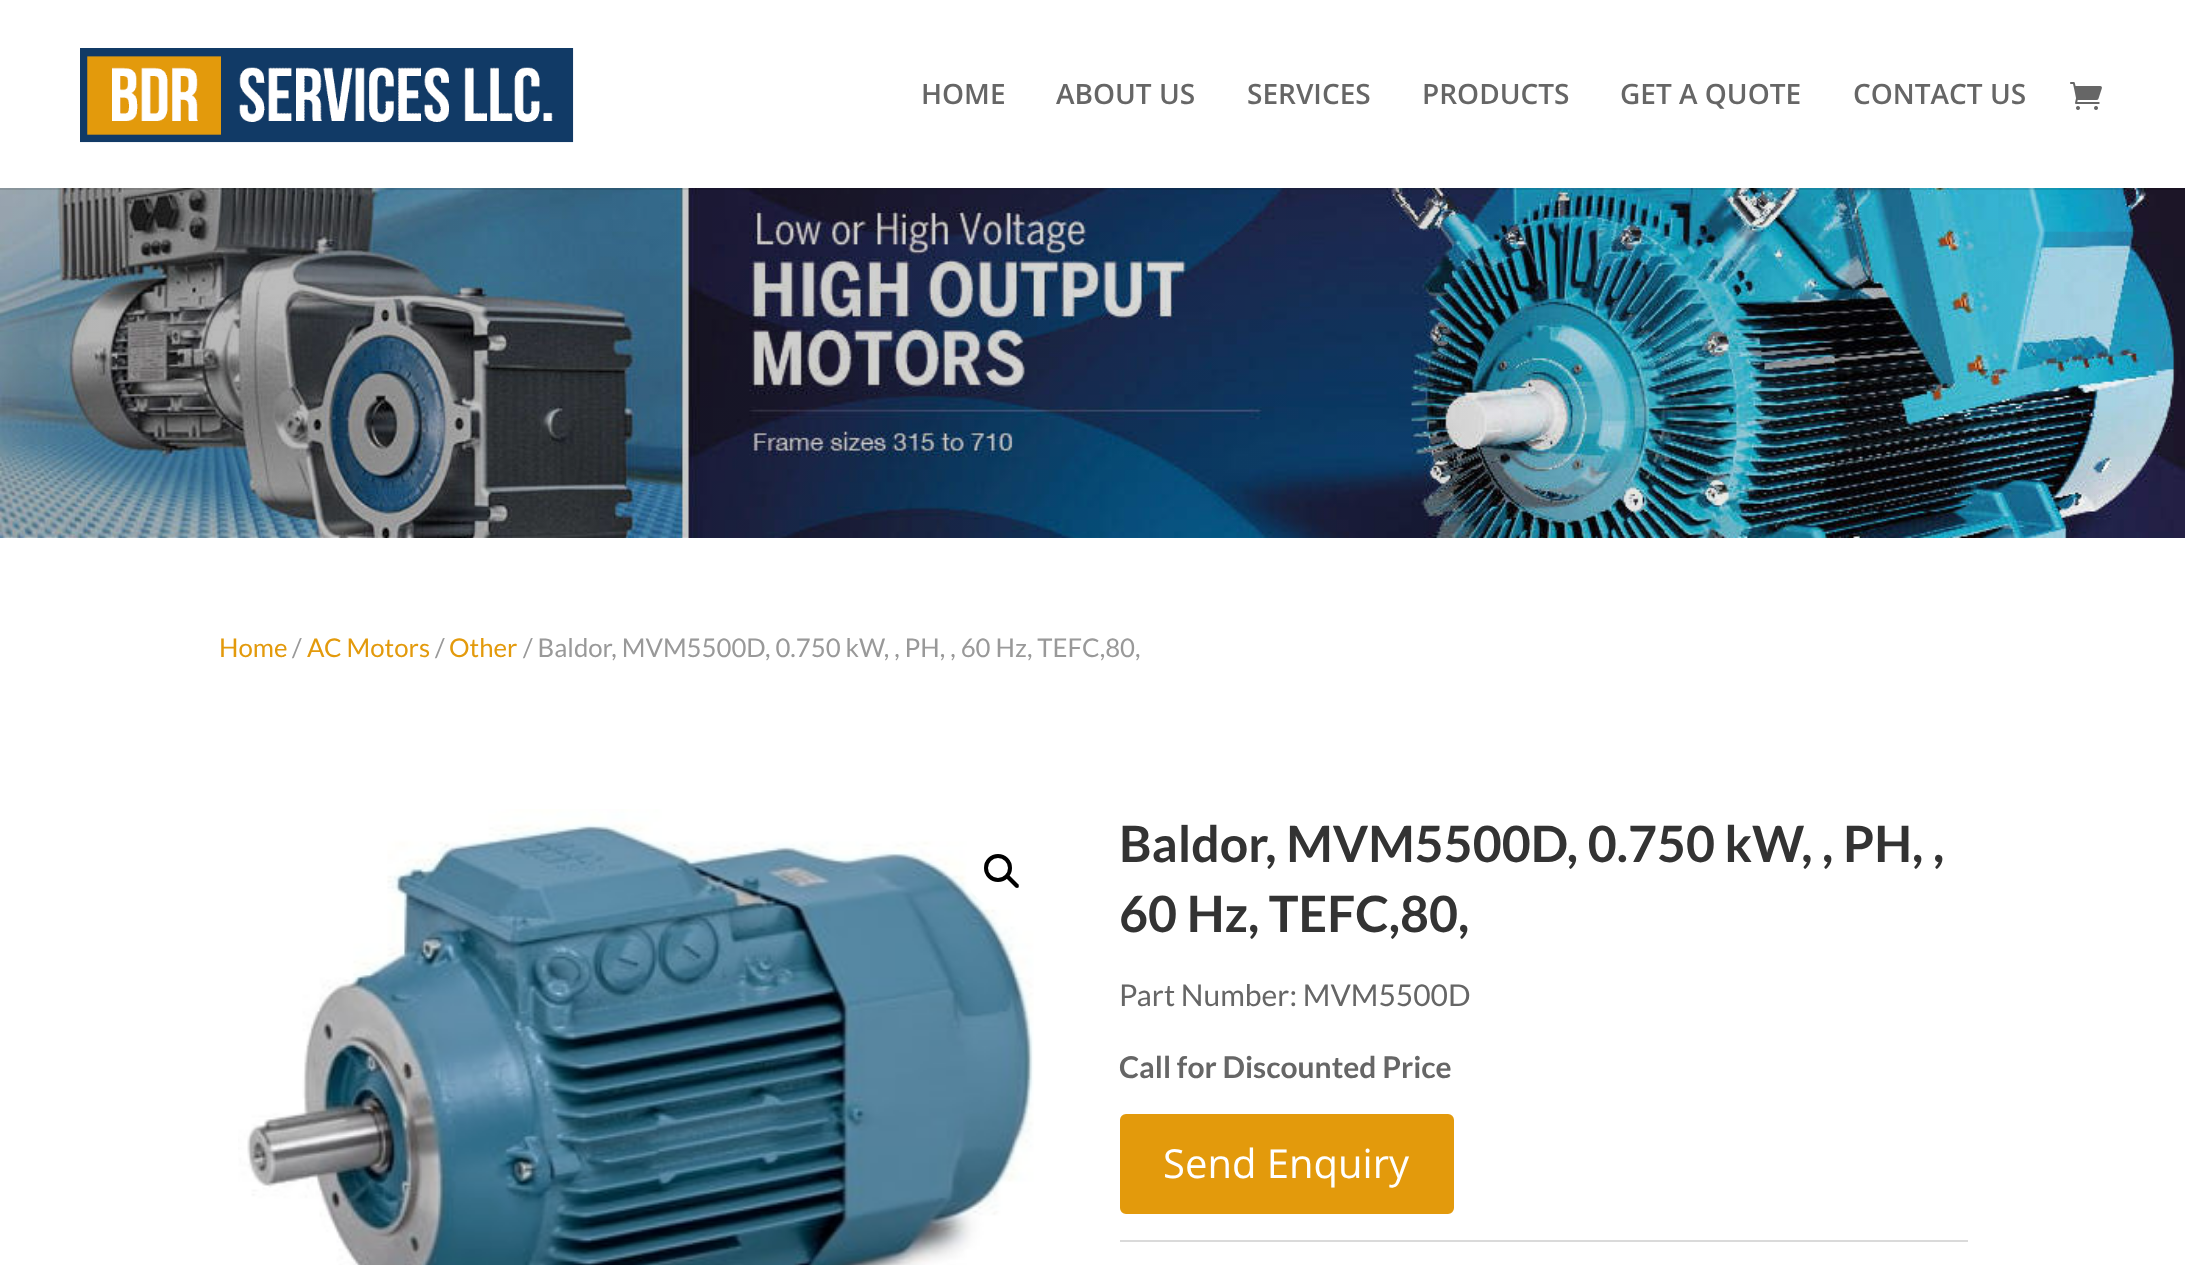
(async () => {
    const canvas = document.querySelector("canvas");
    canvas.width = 2185;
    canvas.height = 1265;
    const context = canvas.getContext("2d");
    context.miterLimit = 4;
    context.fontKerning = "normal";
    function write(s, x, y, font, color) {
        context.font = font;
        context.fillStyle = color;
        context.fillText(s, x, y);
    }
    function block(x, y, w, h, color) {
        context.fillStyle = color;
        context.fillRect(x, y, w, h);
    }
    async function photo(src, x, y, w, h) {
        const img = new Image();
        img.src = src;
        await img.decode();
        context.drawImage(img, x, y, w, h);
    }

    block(0, 0, 2185, 1265, "rgb(255, 255, 255)");
    await photo("media/3.png", 0, 188, 2185, 350);
    block(0, 188, 2185, 2, "rgba(0, 0, 0, 0.1)");
    await photo("media/1.png", 80, 48, 494, 95);
    write("HOME", 921, 104, "600 28px Open Sans", "rgb(102, 102, 102)");
    write("ABOUT US", 1056, 104, "600 28px Open Sans", "rgb(102, 102, 102)");
    write("SERVICES", 1247, 104, "600 28px Open Sans", "rgb(102, 102, 102)");
    write("PRODUCTS", 1422, 104, "600 28px Open Sans", "rgb(102, 102, 102)");
    write("GET A QUOTE", 1620, 104, "600 28px Open Sans", "rgb(102, 102, 102)");
    write("CONTACT US", 1853, 104, "600 28px Open Sans", "rgb(102, 102, 102)");
    await photo("media/2.png", 2070, 82, 32, 28);
    write("Home", 219, 657, "25.75px Lato", "rgb(227, 154, 12)");
    write("/", 292, 657, "25.75px Lato", "rgb(153, 153, 153)");
    write("AC Motors", 307, 657, "25.75px Lato", "rgb(227, 154, 12)");
    write("/", 435, 657, "25.75px Lato", "rgb(153, 153, 153)");
    write("Other", 449, 657, "25.75px Lato", "rgb(227, 154, 12)");
    write("/ Baldor, MVM5500D, 0.750 kW, , PH, , 60 Hz, TEFC,80,", 523, 657, "25.75px Lato", "rgb(153, 153, 153)");
    await photo("media/4.png", 238, 809, 796, 456);
    context.fillStyle = "rgb(255, 255, 255)";
    context.beginPath();
    context.arc(1002, 872, 36, 0, Math.PI * 2);
    context.fill();
    context.beginPath();
    context.arc(998, 868, 12, 0, Math.PI * 2);
    context.strokeStyle = "rgb(0, 0, 0)";
    context.lineWidth = 4;
    context.stroke();
    context.fillStyle = "rgb(0, 0, 0)";
    context.beginPath();
    context.moveTo(1007, 876);
    context.bezierCurveTo(1008, 875.5, 1009, 875.5, 1010, 876);
    context.lineTo(1018.5, 884.5);
    context.bezierCurveTo(1019, 885.5, 1019, 886.5, 1018.5, 887.5);
    context.bezierCurveTo(1017.5, 888, 1016.5, 888, 1015.5, 887.5);
    context.lineTo(1007, 879);
    context.bezierCurveTo(1006.5, 878, 1006.5, 877, 1007, 876);
    context.closePath();
    context.fill();
    write("Baldor, MVM5500D, 0.750 kW, , PH, ,", 1119, 862, "bold 50px Lato", "rgb(51, 51, 51)");
    write("60 Hz, TEFC,80,", 1119, 932, "bold 50px Lato", "rgb(51, 51, 51)");
    write("Part Number: MVM5500D", 1119, 1006, "30px Lato", "rgb(102, 102, 102)");
    write("Call for Discounted Price", 1119, 1078, "bold 30px Lato", "rgb(102, 102, 102)");
    context.fillStyle = "rgb(227, 154, 12)";
    context.beginPath();
    context.roundRect(1122, 1116, 330, 96, 4);
    context.fill();
    context.strokeStyle = "rgb(227, 154, 12)";
    context.stroke();
    write("Send Enquiry", 1163, 1178, "40px Open Sans", "rgb(255, 255, 255)");
    block(1120, 1240, 848, 2, "rgb(218, 218, 218)");
})();
